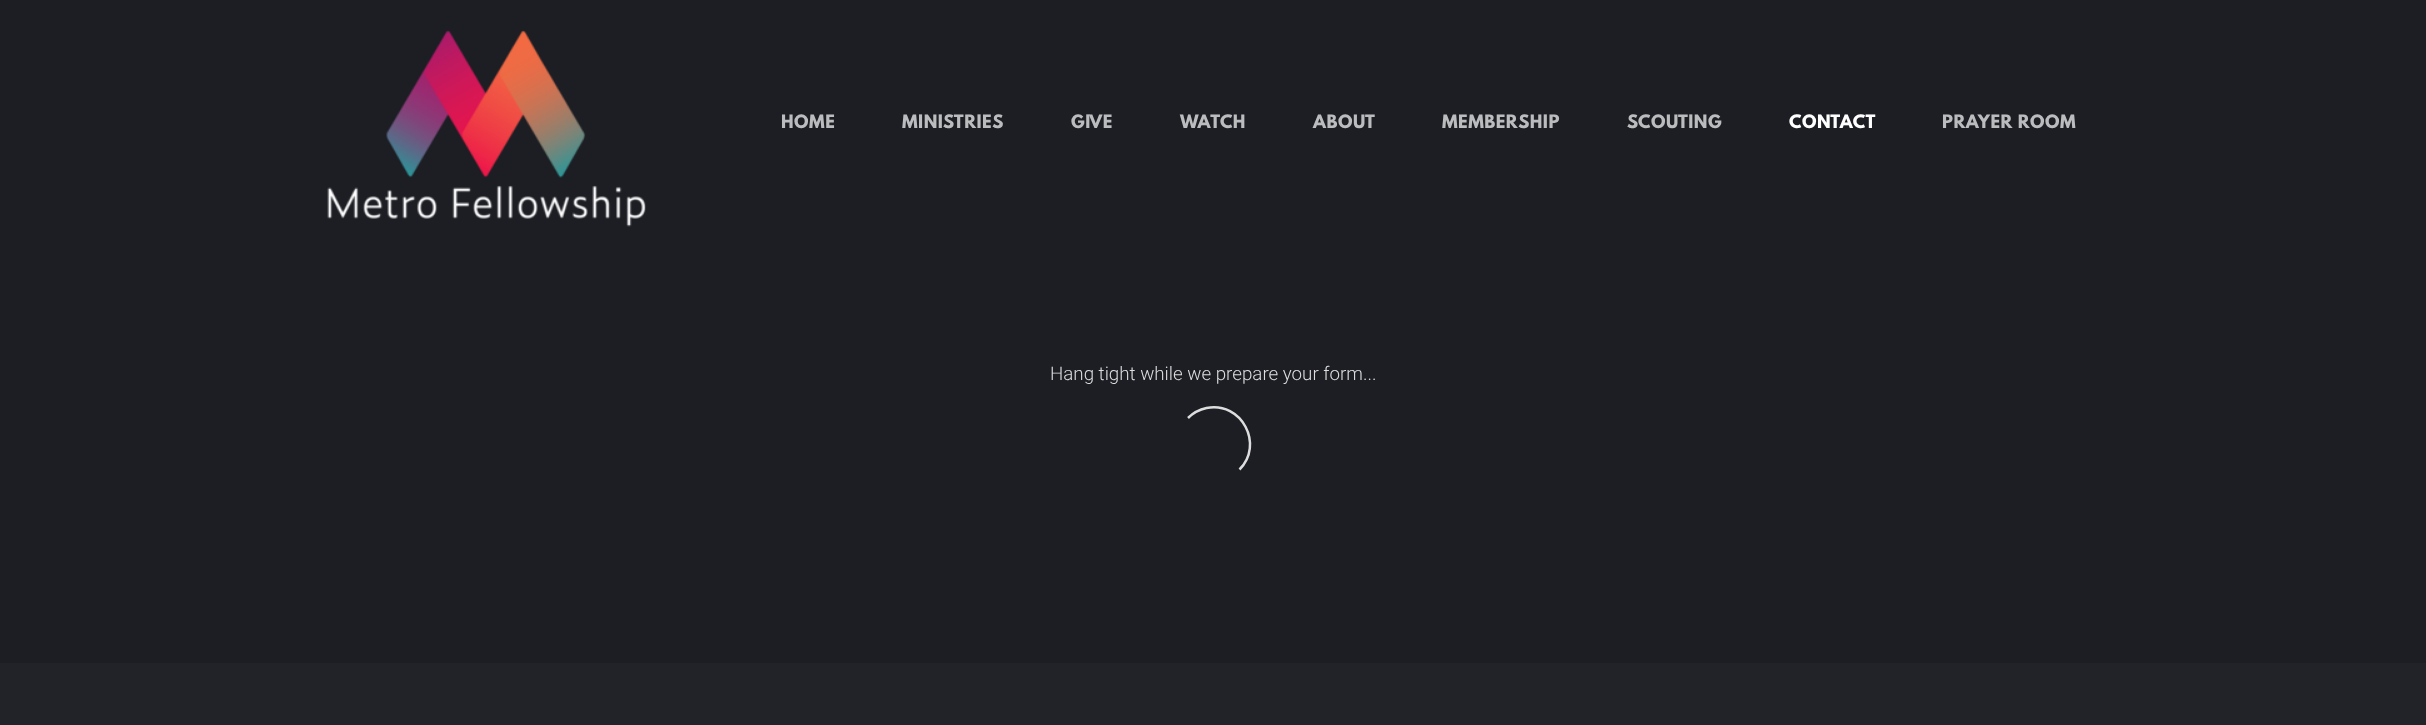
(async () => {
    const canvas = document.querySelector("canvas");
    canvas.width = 2426;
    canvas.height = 725;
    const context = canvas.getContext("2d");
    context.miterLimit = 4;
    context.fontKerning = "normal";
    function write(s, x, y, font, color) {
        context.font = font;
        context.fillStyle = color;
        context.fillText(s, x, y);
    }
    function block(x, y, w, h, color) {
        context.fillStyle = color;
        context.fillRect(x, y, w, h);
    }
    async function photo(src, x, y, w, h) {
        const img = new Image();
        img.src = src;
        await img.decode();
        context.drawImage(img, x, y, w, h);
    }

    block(0, 0, 2426, 725, "rgb(28, 30, 36)");
    await photo("media/1.png", 327, 30, 319, 197);
    context.letterSpacing = "0.5px";
    write("HOME", 781, 128, "bold 16.5px League Spartan", "rgb(187, 188, 189)");
    write("MINISTRIES", 902, 128, "bold 16.5px League Spartan", "rgb(187, 188, 189)");
    write("GIVE", 1071, 128, "bold 16.5px League Spartan", "rgb(187, 188, 189)");
    write("WATCH", 1180, 128, "bold 16.5px League Spartan", "rgb(187, 188, 189)");
    write("ABOUT", 1313, 128, "bold 16.5px League Spartan", "rgb(187, 188, 189)");
    write("MEMBERSHIP", 1442, 128, "bold 16.5px League Spartan", "rgb(187, 188, 189)");
    write("SCOUTING", 1627, 128, "bold 16.5px League Spartan", "rgb(187, 188, 189)");
    write("CONTACT", 1789, 128, "bold 16.5px League Spartan", "rgb(255, 255, 255)");
    write("PRAYER ROOM", 1942, 128, "bold 16.5px League Spartan", "rgb(187, 188, 189)");
    context.letterSpacing = "0px";
    write("Hang tight while we prepare your form...", 1050, 380, "300 18.75px Roboto", "rgb(221, 221, 222)");
    context.beginPath();
    context.moveTo(1188, 418);
    context.bezierCurveTo(1193, 413, 1199.5, 409.5, 1206.5, 408);
    context.bezierCurveTo(1241.5, 401, 1264.5, 444.5, 1239.5, 469.5);
    context.strokeStyle = "rgb(221, 221, 222)";
    context.lineWidth = 2.5;
    context.stroke();
    block(0, 663, 2426, 62, "rgb(33, 35, 41)");
})();
